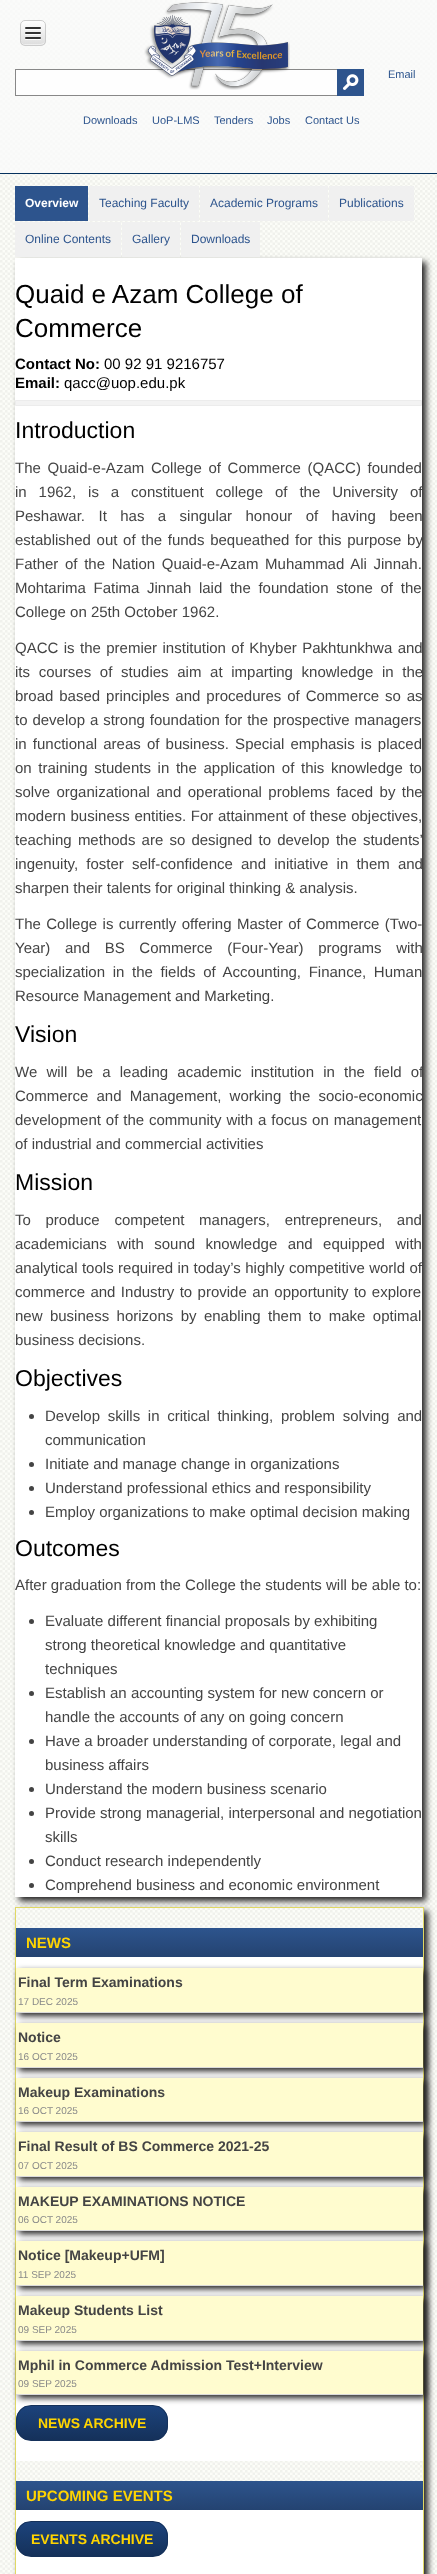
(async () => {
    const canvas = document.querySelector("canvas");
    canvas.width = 437;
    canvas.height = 2574;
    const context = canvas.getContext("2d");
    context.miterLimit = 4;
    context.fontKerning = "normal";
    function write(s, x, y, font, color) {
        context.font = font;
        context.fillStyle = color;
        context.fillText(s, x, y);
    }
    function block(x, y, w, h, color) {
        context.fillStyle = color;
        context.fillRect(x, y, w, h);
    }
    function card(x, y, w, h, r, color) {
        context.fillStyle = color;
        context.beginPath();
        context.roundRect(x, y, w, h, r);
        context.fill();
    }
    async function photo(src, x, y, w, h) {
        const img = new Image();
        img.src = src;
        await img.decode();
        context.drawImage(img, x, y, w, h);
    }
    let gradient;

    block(0, 0, 437, 2574, "rgb(255, 255, 255)");
    await photo("media/1.png", 0, 0, 437, 2574);
    block(0, 0, 437, 173, "rgba(250, 250, 250, 0.8)");
    block(0, 173, 437, 1, "rgb(6, 50, 93)");
    context.save();
    context.beginPath();
    context.roundRect(20, 20, 26, 26, 5);
    context.clip();
    gradient = context.createLinearGradient(33, 21, 33, 45);
    gradient.addColorStop(0, "rgb(255, 255, 255)");
    gradient.addColorStop(1, "rgb(221, 221, 221)");
    context.fillStyle = gradient;
    context.fillRect(20, 21, 26, 24);
    context.restore();
    context.fillStyle = "rgba(255, 255, 255, 0.5)";
    context.beginPath();
    context.moveTo(21, 35);
    context.bezierCurveTo(21, 46.5, 21, 45, 33, 45);
    context.lineTo(38.5, 45);
    context.bezierCurveTo(43, 45, 45, 44.5, 45, 39.5);
    context.bezierCurveTo(45, 41, 44.5, 42, 43.5, 43);
    context.lineTo(40.5, 44);
    context.lineTo(24.5, 44);
    context.bezierCurveTo(23.5, 44, 23, 44, 22, 43);
    context.bezierCurveTo(20.5, 41.5, 21, 37, 21, 35);
    context.closePath();
    context.fill();
    context.beginPath();
    context.roundRect(20.5, 20.5, 25, 25, 4.5);
    context.strokeStyle = "rgb(204, 204, 204)";
    context.stroke();
    context.fillStyle = "rgb(255, 255, 255)";
    context.beginPath();
    context.moveTo(25, 28.5);
    context.bezierCurveTo(24, 30.5, 28, 30, 28.5, 30);
    context.lineTo(37.5, 30);
    context.bezierCurveTo(38, 30, 42, 30.5, 41, 28.5);
    context.bezierCurveTo(40, 29.5, 34.5, 29, 33, 29);
    context.bezierCurveTo(31.5, 29, 26, 29.5, 25, 28.5);
    context.closePath();
    context.fill();
    card(25, 27, 16, 2, 1, "rgb(51, 51, 51)");
    context.fillStyle = "rgb(255, 255, 255)";
    context.beginPath();
    context.moveTo(25, 33.5);
    context.bezierCurveTo(24, 35.5, 28, 35, 28.5, 35);
    context.lineTo(37.5, 35);
    context.bezierCurveTo(38, 35, 42, 35.5, 41, 33.5);
    context.bezierCurveTo(40, 34.5, 34.5, 34, 33, 34);
    context.bezierCurveTo(31.5, 34, 26, 34.5, 25, 33.5);
    context.closePath();
    context.fill();
    card(25, 32, 16, 2, 1, "rgb(51, 51, 51)");
    context.fillStyle = "rgb(255, 255, 255)";
    context.beginPath();
    context.moveTo(25, 38.5);
    context.bezierCurveTo(24, 40.5, 28, 40, 28.5, 40);
    context.lineTo(37.5, 40);
    context.bezierCurveTo(38, 40, 42, 40.5, 41, 38.5);
    context.bezierCurveTo(40, 39.5, 34.5, 39, 33, 39);
    context.bezierCurveTo(31.5, 39, 26, 39.5, 25, 38.5);
    context.closePath();
    context.fill();
    card(25, 37, 16, 2, 1, "rgb(51, 51, 51)");
    block(16, 70, 321, 25, "rgb(254, 254, 254)");
    block(15, 69, 322, 1, "rgb(136, 136, 136)");
    await photo("media/2.png", 144, 2, 146, 88);
    block(15, 95, 322, 1, "rgb(136, 136, 136)");
    block(15, 69, 1, 27, "rgb(136, 136, 136)");
    block(337, 69, 27, 27, "rgb(45, 84, 141)");
    await photo("media/3.png", 343, 74, 16, 16);
    write("Email", 388, 78, "11px Liberation Sans", "rgb(45, 84, 141)");
    write("Downloads", 83, 124, "11px Liberation Sans", "rgb(45, 84, 141)");
    write("UoP-LMS", 152, 124, "11px Liberation Sans", "rgb(45, 84, 141)");
    write("Tenders", 214, 124, "11px Liberation Sans", "rgb(45, 84, 141)");
    write("Jobs", 267, 124, "11px Liberation Sans", "rgb(45, 84, 141)");
    write("Contact Us", 305, 124, "11px Liberation Sans", "rgb(45, 84, 141)");
    block(15, 186, 73, 35, "rgb(45, 84, 141)");
    write("Overview", 25, 207, "bold 12px Liberation Sans", "rgb(255, 255, 255)");
    block(89, 186, 110, 35, "rgb(240, 240, 240)");
    write("Teaching Faculty", 99, 207, "12px Liberation Sans", "rgb(45, 84, 141)");
    block(200, 186, 128, 35, "rgb(240, 240, 240)");
    write("Academic Programs", 210, 207, "12px Liberation Sans", "rgb(45, 84, 141)");
    block(329, 186, 85, 35, "rgb(240, 240, 240)");
    write("Publications", 339, 207, "12px Liberation Sans", "rgb(45, 84, 141)");
    context.fillStyle = "rgb(36, 35, 35)";
    context.filter = "blur(3px)";
    context.beginPath();
    context.rect(19, 262, 407, 1639);
    context.fill();
    context.filter = "none";
    block(15, 222, 106, 35, "rgb(240, 240, 240)");
    write("Online Contents", 25, 243, "12px Liberation Sans", "rgb(45, 84, 141)");
    block(122, 222, 58, 35, "rgb(240, 240, 240)");
    write("Gallery", 132, 243, "12px Liberation Sans", "rgb(45, 84, 141)");
    block(181, 222, 79, 35, "rgb(240, 240, 240)");
    write("Downloads", 191, 243, "12px Liberation Sans", "rgb(45, 84, 141)");
    block(15, 258, 407, 1639, "rgb(255, 255, 255)");
    write("Quaid e Azam College of", 15, 303, "26px Liberation Sans", "rgb(0, 0, 0)");
    write("Commerce", 15, 337, "26px Liberation Sans", "rgb(0, 0, 0)");
    write("Contact No:", 15, 369, "bold 15px Liberation Sans", "rgb(0, 0, 0)");
    write("00 92 91 9216757", 104, 369, "15px Liberation Sans", "rgb(0, 0, 0)");
    write("Email:", 15, 388, "bold 15px Liberation Sans", "rgb(0, 0, 0)");
    write("qacc@uop.edu.pk", 64, 388, "15px Liberation Sans", "rgb(0, 0, 0)");
    context.fillStyle = "rgb(243, 243, 243)";
    context.beginPath();
    context.rect(15.5, 400.5, 406, 5);
    context.fill();
    context.strokeStyle = "rgb(236, 236, 236)";
    context.stroke();
    write("Introduction", 15, 438, "23px Liberation Sans", "rgb(0, 0, 0)");
    context.wordSpacing = "2.5px";
    write("The Quaid-e-Azam College of Commerce (QACC) founded", 15, 473, "15px Liberation Sans", "rgb(68, 68, 68)");
    context.wordSpacing = "7.75px";
    write("in 1962, is a constituent college of the University of", 15, 497, "15px Liberation Sans", "rgb(68, 68, 68)");
    context.wordSpacing = "9.25px";
    write("Peshawar. It has a singular honour of having been", 15, 521, "15px Liberation Sans", "rgb(68, 68, 68)");
    context.wordSpacing = "1.5px";
    write("established out of the funds bequeathed for this purpose by", 15, 545, "15px Liberation Sans", "rgb(68, 68, 68)");
    context.wordSpacing = "2.5px";
    write("Father of the Nation Quaid-e-Azam Muhammad Ali Jinnah.", 15, 569, "15px Liberation Sans", "rgb(68, 68, 68)");
    context.wordSpacing = "3.5px";
    write("Mohtarima Fatima Jinnah laid the foundation stone of the", 15, 593, "15px Liberation Sans", "rgb(68, 68, 68)");
    context.wordSpacing = "0px";
    write("College on 25th October 1962.", 15, 617, "15px Liberation Sans", "rgb(68, 68, 68)");
    context.wordSpacing = "1.25px";
    write("QACC is the premier institution of Khyber Pakhtunkhwa and", 15, 653, "15px Liberation Sans", "rgb(68, 68, 68)");
    context.wordSpacing = "4.5px";
    write("its courses of studies aim at imparting knowledge in the", 15, 677, "15px Liberation Sans", "rgb(68, 68, 68)");
    context.wordSpacing = "1.75px";
    write("broad based principles and procedures of Commerce so as", 15, 701, "15px Liberation Sans", "rgb(68, 68, 68)");
    context.wordSpacing = "0.75px";
    write("to develop a strong foundation for the prospective managers", 15, 725, "15px Liberation Sans", "rgb(68, 68, 68)");
    context.wordSpacing = "2px";
    write("in functional areas of business. Special emphasis is placed", 15, 749, "15px Liberation Sans", "rgb(68, 68, 68)");
    context.wordSpacing = "2.5px";
    write("on training students in the application of this knowledge to", 15, 773, "15px Liberation Sans", "rgb(68, 68, 68)");
    context.wordSpacing = "2.25px";
    write("solve organizational and operational problems faced by the", 15, 797, "15px Liberation Sans", "rgb(68, 68, 68)");
    context.wordSpacing = "0.5px";
    write("modern business entities. For attainment of these objectives,", 15, 821, "15px Liberation Sans", "rgb(68, 68, 68)");
    context.wordSpacing = "2px";
    write("teaching methods are so designed to develop the students’", 15, 845, "15px Liberation Sans", "rgb(68, 68, 68)");
    context.wordSpacing = "4px";
    write("ingenuity, foster self-confidence and initiative in them and", 15, 869, "15px Liberation Sans", "rgb(68, 68, 68)");
    context.wordSpacing = "0px";
    write("sharpen their talents for original thinking & analysis.", 15, 893, "15px Liberation Sans", "rgb(68, 68, 68)");
    context.wordSpacing = "1.25px";
    write("The College is currently offering Master of Commerce (Two-", 15, 929, "15px Liberation Sans", "rgb(68, 68, 68)");
    context.wordSpacing = "10.5px";
    write("Year) and BS Commerce (Four-Year) programs with", 15, 953, "15px Liberation Sans", "rgb(68, 68, 68)");
    context.wordSpacing = "3.5px";
    write("specialization in the fields of Accounting, Finance, Human", 15, 977, "15px Liberation Sans", "rgb(68, 68, 68)");
    context.wordSpacing = "0px";
    write("Resource Management and Marketing.", 15, 1001, "15px Liberation Sans", "rgb(68, 68, 68)");
    write("Vision", 15, 1042, "23px Liberation Sans", "rgb(0, 0, 0)");
    context.wordSpacing = "5px";
    write("We will be a leading academic institution in the field of", 15, 1077, "15px Liberation Sans", "rgb(68, 68, 68)");
    context.wordSpacing = "4px";
    write("Commerce and Management, working the socio-economic", 15, 1101, "15px Liberation Sans", "rgb(68, 68, 68)");
    context.wordSpacing = "0.75px";
    write("development of the community with a focus on management", 15, 1125, "15px Liberation Sans", "rgb(68, 68, 68)");
    context.wordSpacing = "0px";
    write("of industrial and commercial activities", 15, 1149, "15px Liberation Sans", "rgb(68, 68, 68)");
    write("Mission", 15, 1190, "23px Liberation Sans", "rgb(0, 0, 0)");
    context.wordSpacing = "10.5px";
    write("To produce competent managers, entrepreneurs, and", 15, 1225, "15px Liberation Sans", "rgb(68, 68, 68)");
    context.wordSpacing = "6.25px";
    write("academicians with sound knowledge and equipped with", 15, 1249, "15px Liberation Sans", "rgb(68, 68, 68)");
    context.wordSpacing = "0.25px";
    write("analytical tools required in today’s highly competitive world of", 15, 1273, "15px Liberation Sans", "rgb(68, 68, 68)");
    context.wordSpacing = "1.25px";
    write("commerce and Industry to provide an opportunity to explore", 15, 1297, "15px Liberation Sans", "rgb(68, 68, 68)");
    context.wordSpacing = "3.25px";
    write("new business horizons by enabling them to make optimal", 15, 1321, "15px Liberation Sans", "rgb(68, 68, 68)");
    context.wordSpacing = "0px";
    write("business decisions.", 15, 1345, "15px Liberation Sans", "rgb(68, 68, 68)");
    write("Objectives", 15, 1386, "23px Liberation Sans", "rgb(0, 0, 0)");
    context.fillStyle = "rgb(68, 68, 68)";
    context.beginPath();
    context.arc(31.5, 1416.5, 2.5, 0, Math.PI * 2);
    context.fill();
    context.wordSpacing = "3.5px";
    write("Develop skills in critical thinking, problem solving and", 45, 1421, "15px Liberation Sans", "rgb(68, 68, 68)");
    context.wordSpacing = "0px";
    write("communication", 45, 1445, "15px Liberation Sans", "rgb(68, 68, 68)");
    context.beginPath();
    context.arc(31.5, 1464.5, 2.5, 0, Math.PI * 2);
    context.fill();
    write("Initiate and manage change in organizations", 45, 1469, "15px Liberation Sans", "rgb(68, 68, 68)");
    context.beginPath();
    context.arc(31.5, 1488.5, 2.5, 0, Math.PI * 2);
    context.fill();
    write("Understand professional ethics and responsibility", 45, 1493, "15px Liberation Sans", "rgb(68, 68, 68)");
    context.beginPath();
    context.arc(31.5, 1512.5, 2.5, 0, Math.PI * 2);
    context.fill();
    write("Employ organizations to make optimal decision making", 45, 1517, "15px Liberation Sans", "rgb(68, 68, 68)");
    write("Outcomes", 15, 1556, "23px Liberation Sans", "rgb(0, 0, 0)");
    write("After graduation from the College the students will be able to:", 15, 1590, "15px Liberation Sans", "rgb(68, 68, 68)");
    context.beginPath();
    context.arc(31.5, 1621.5, 2.5, 0, Math.PI * 2);
    context.fill();
    write("Evaluate different financial proposals by exhibiting", 45, 1626, "15px Liberation Sans", "rgb(68, 68, 68)");
    write("strong theoretical knowledge and quantitative", 45, 1650, "15px Liberation Sans", "rgb(68, 68, 68)");
    write("techniques", 45, 1674, "15px Liberation Sans", "rgb(68, 68, 68)");
    context.beginPath();
    context.arc(31.5, 1693.5, 2.5, 0, Math.PI * 2);
    context.fill();
    write("Establish an accounting system for new concern or", 45, 1698, "15px Liberation Sans", "rgb(68, 68, 68)");
    write("handle the accounts of any on going concern", 45, 1722, "15px Liberation Sans", "rgb(68, 68, 68)");
    context.beginPath();
    context.arc(31.5, 1741.5, 2.5, 0, Math.PI * 2);
    context.fill();
    write("Have a broader understanding of corporate, legal and", 45, 1746, "15px Liberation Sans", "rgb(68, 68, 68)");
    write("business affairs", 45, 1770, "15px Liberation Sans", "rgb(68, 68, 68)");
    context.beginPath();
    context.arc(31.5, 1789.5, 2.5, 0, Math.PI * 2);
    context.fill();
    write("Understand the modern business scenario", 45, 1794, "15px Liberation Sans", "rgb(68, 68, 68)");
    context.beginPath();
    context.arc(31.5, 1813.5, 2.5, 0, Math.PI * 2);
    context.fill();
    write("Provide strong managerial, interpersonal and negotiation", 45, 1818, "15px Liberation Sans", "rgb(68, 68, 68)");
    write("skills", 45, 1842, "15px Liberation Sans", "rgb(68, 68, 68)");
    context.beginPath();
    context.arc(31.5, 1861.5, 2.5, 0, Math.PI * 2);
    context.fill();
    write("Conduct research independently", 45, 1866, "15px Liberation Sans", "rgb(68, 68, 68)");
    context.beginPath();
    context.arc(31.5, 1885.5, 2.5, 0, Math.PI * 2);
    context.fill();
    write("Comprehend business and economic environment", 45, 1890, "15px Liberation Sans", "rgb(68, 68, 68)");
    context.save();
    context.beginPath();
    context.moveTo(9, 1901);
    context.lineTo(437, 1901);
    context.lineTo(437, 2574);
    context.lineTo(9, 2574);
    context.closePath();
    context.moveTo(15, 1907);
    context.lineTo(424, 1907);
    context.lineTo(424, 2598);
    context.lineTo(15, 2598);
    context.closePath();
    context.clip("evenodd");
    context.fillStyle = "rgb(36, 35, 35)";
    context.filter = "blur(3px)";
    context.beginPath();
    context.rect(19, 1911, 409, 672);
    context.fill();
    context.filter = "none";
    context.restore();
    context.strokeStyle = "rgb(224, 216, 100)";
    context.strokeRect(15.5, 1907.5, 408, 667);
    block(16, 1957, 407, 504, "rgb(255, 255, 255)");
    gradient = context.createLinearGradient(220, 1928, 220, 1957);
    gradient.addColorStop(0, "rgb(45, 84, 141)");
    gradient.addColorStop(1, "rgb(36, 67, 113)");
    context.fillStyle = gradient;
    context.fillRect(16, 1928, 407, 29);
    write("NEWS", 26, 1948, "bold 15px Liberation Sans", "rgb(255, 212, 0)");
    context.fillStyle = "rgb(36, 35, 35)";
    context.filter = "blur(3px)";
    context.beginPath();
    context.rect(19, 1971, 407, 45);
    context.fill();
    context.filter = "none";
    block(16, 1968, 407, 44, "rgb(255, 252, 207)");
    block(16, 2012, 407, 1, "rgb(218, 218, 218)");
    write("Final Term Examinations", 18, 1987, "bold 14px Liberation Sans", "rgb(68, 68, 68)");
    write("17 DEC 2025", 18, 2005, "10px Liberation Sans", "rgb(137, 137, 137)");
    context.fillStyle = "rgb(36, 35, 35)";
    context.filter = "blur(3px)";
    context.beginPath();
    context.rect(19, 2026, 407, 45);
    context.fill();
    context.filter = "none";
    block(16, 2023, 407, 44, "rgb(255, 252, 207)");
    block(16, 2067, 407, 1, "rgb(218, 218, 218)");
    write("Notice", 18, 2042, "bold 14px Liberation Sans", "rgb(68, 68, 68)");
    write("16 OCT 2025", 18, 2060, "10px Liberation Sans", "rgb(137, 137, 137)");
    context.fillStyle = "rgb(36, 35, 35)";
    context.filter = "blur(3px)";
    context.beginPath();
    context.rect(19, 2081, 407, 44);
    context.fill();
    context.filter = "none";
    block(16, 2078, 407, 43, "rgb(255, 252, 207)");
    block(16, 2121, 407, 1, "rgb(218, 218, 218)");
    write("Makeup Examinations", 18, 2097, "bold 14px Liberation Sans", "rgb(68, 68, 68)");
    write("16 OCT 2025", 18, 2114, "10px Liberation Sans", "rgb(137, 137, 137)");
    context.fillStyle = "rgb(36, 35, 35)";
    context.filter = "blur(3px)";
    context.beginPath();
    context.rect(19, 2135, 407, 45);
    context.fill();
    context.filter = "none";
    block(16, 2132, 407, 44, "rgb(255, 252, 207)");
    block(16, 2176, 407, 1, "rgb(218, 218, 218)");
    write("Final Result of BS Commerce 2021-25", 18, 2151, "bold 14px Liberation Sans", "rgb(68, 68, 68)");
    write("07 OCT 2025", 18, 2169, "10px Liberation Sans", "rgb(137, 137, 137)");
    context.fillStyle = "rgb(36, 35, 35)";
    context.filter = "blur(3px)";
    context.beginPath();
    context.rect(19, 2190, 407, 44);
    context.fill();
    context.filter = "none";
    block(16, 2187, 407, 43, "rgb(255, 252, 207)");
    block(16, 2230, 407, 1, "rgb(218, 218, 218)");
    write("MAKEUP EXAMINATIONS NOTICE", 18, 2206, "bold 14px Liberation Sans", "rgb(68, 68, 68)");
    write("06 OCT 2025", 18, 2223, "10px Liberation Sans", "rgb(137, 137, 137)");
    context.fillStyle = "rgb(36, 35, 35)";
    context.filter = "blur(3px)";
    context.beginPath();
    context.rect(19, 2244, 407, 45);
    context.fill();
    context.filter = "none";
    block(16, 2241, 407, 44, "rgb(255, 252, 207)");
    block(16, 2285, 407, 1, "rgb(218, 218, 218)");
    write("Notice [Makeup+UFM]", 18, 2260, "bold 14px Liberation Sans", "rgb(68, 68, 68)");
    write("11 SEP 2025", 18, 2278, "10px Liberation Sans", "rgb(137, 137, 137)");
    context.fillStyle = "rgb(36, 35, 35)";
    context.filter = "blur(3px)";
    context.beginPath();
    context.rect(19, 2299, 407, 45);
    context.fill();
    context.filter = "none";
    block(16, 2296, 407, 44, "rgb(255, 252, 207)");
    block(16, 2340, 407, 1, "rgb(218, 218, 218)");
    write("Makeup Students List", 18, 2315, "bold 14px Liberation Sans", "rgb(68, 68, 68)");
    write("09 SEP 2025", 18, 2333, "10px Liberation Sans", "rgb(137, 137, 137)");
    context.fillStyle = "rgb(36, 35, 35)";
    context.filter = "blur(3px)";
    context.beginPath();
    context.rect(19, 2354, 407, 44);
    context.fill();
    context.filter = "none";
    block(16, 2351, 407, 43, "rgb(255, 252, 207)");
    block(16, 2394, 407, 1, "rgb(218, 218, 218)");
    write("Mphil in Commerce Admission Test+Interview", 18, 2370, "bold 14px Liberation Sans", "rgb(68, 68, 68)");
    write("09 SEP 2025", 18, 2387, "10px Liberation Sans", "rgb(137, 137, 137)");
    context.save();
    context.beginPath();
    context.roundRect(16, 2405, 152, 36, 15);
    context.clip();
    gradient = context.createLinearGradient(92, 2406, 92, 2440);
    gradient.addColorStop(0, "rgb(28, 67, 124)");
    gradient.addColorStop(1, "rgb(21, 49, 90)");
    context.fillStyle = gradient;
    context.fillRect(16, 2406, 152, 34);
    context.restore();
    context.beginPath();
    context.roundRect(16.5, 2405.5, 151, 35, 14.5);
    context.strokeStyle = "rgb(21, 49, 90)";
    context.stroke();
    write("NEWS ARCHIVE", 38, 2428, "bold 14px Liberation Sans", "rgb(255, 212, 0)");
    block(16, 2510, 407, 64, "rgb(255, 255, 255)");
    gradient = context.createLinearGradient(220, 2481, 220, 2510);
    gradient.addColorStop(0, "rgb(45, 84, 141)");
    gradient.addColorStop(1, "rgb(36, 67, 113)");
    context.fillStyle = gradient;
    context.fillRect(16, 2481, 407, 29);
    write("UPCOMING EVENTS", 26, 2501, "bold 15px Liberation Sans", "rgb(255, 212, 0)");
    context.save();
    context.beginPath();
    context.roundRect(16, 2521, 152, 36, 15);
    context.clip();
    gradient = context.createLinearGradient(92, 2522, 92, 2556);
    gradient.addColorStop(0, "rgb(28, 67, 124)");
    gradient.addColorStop(1, "rgb(21, 49, 90)");
    context.fillStyle = gradient;
    context.fillRect(16, 2522, 152, 34);
    context.restore();
    context.beginPath();
    context.roundRect(16.5, 2521.5, 151, 35, 14.5);
    context.stroke();
    write("EVENTS ARCHIVE", 31, 2544, "bold 14px Liberation Sans", "rgb(255, 212, 0)");
})();
